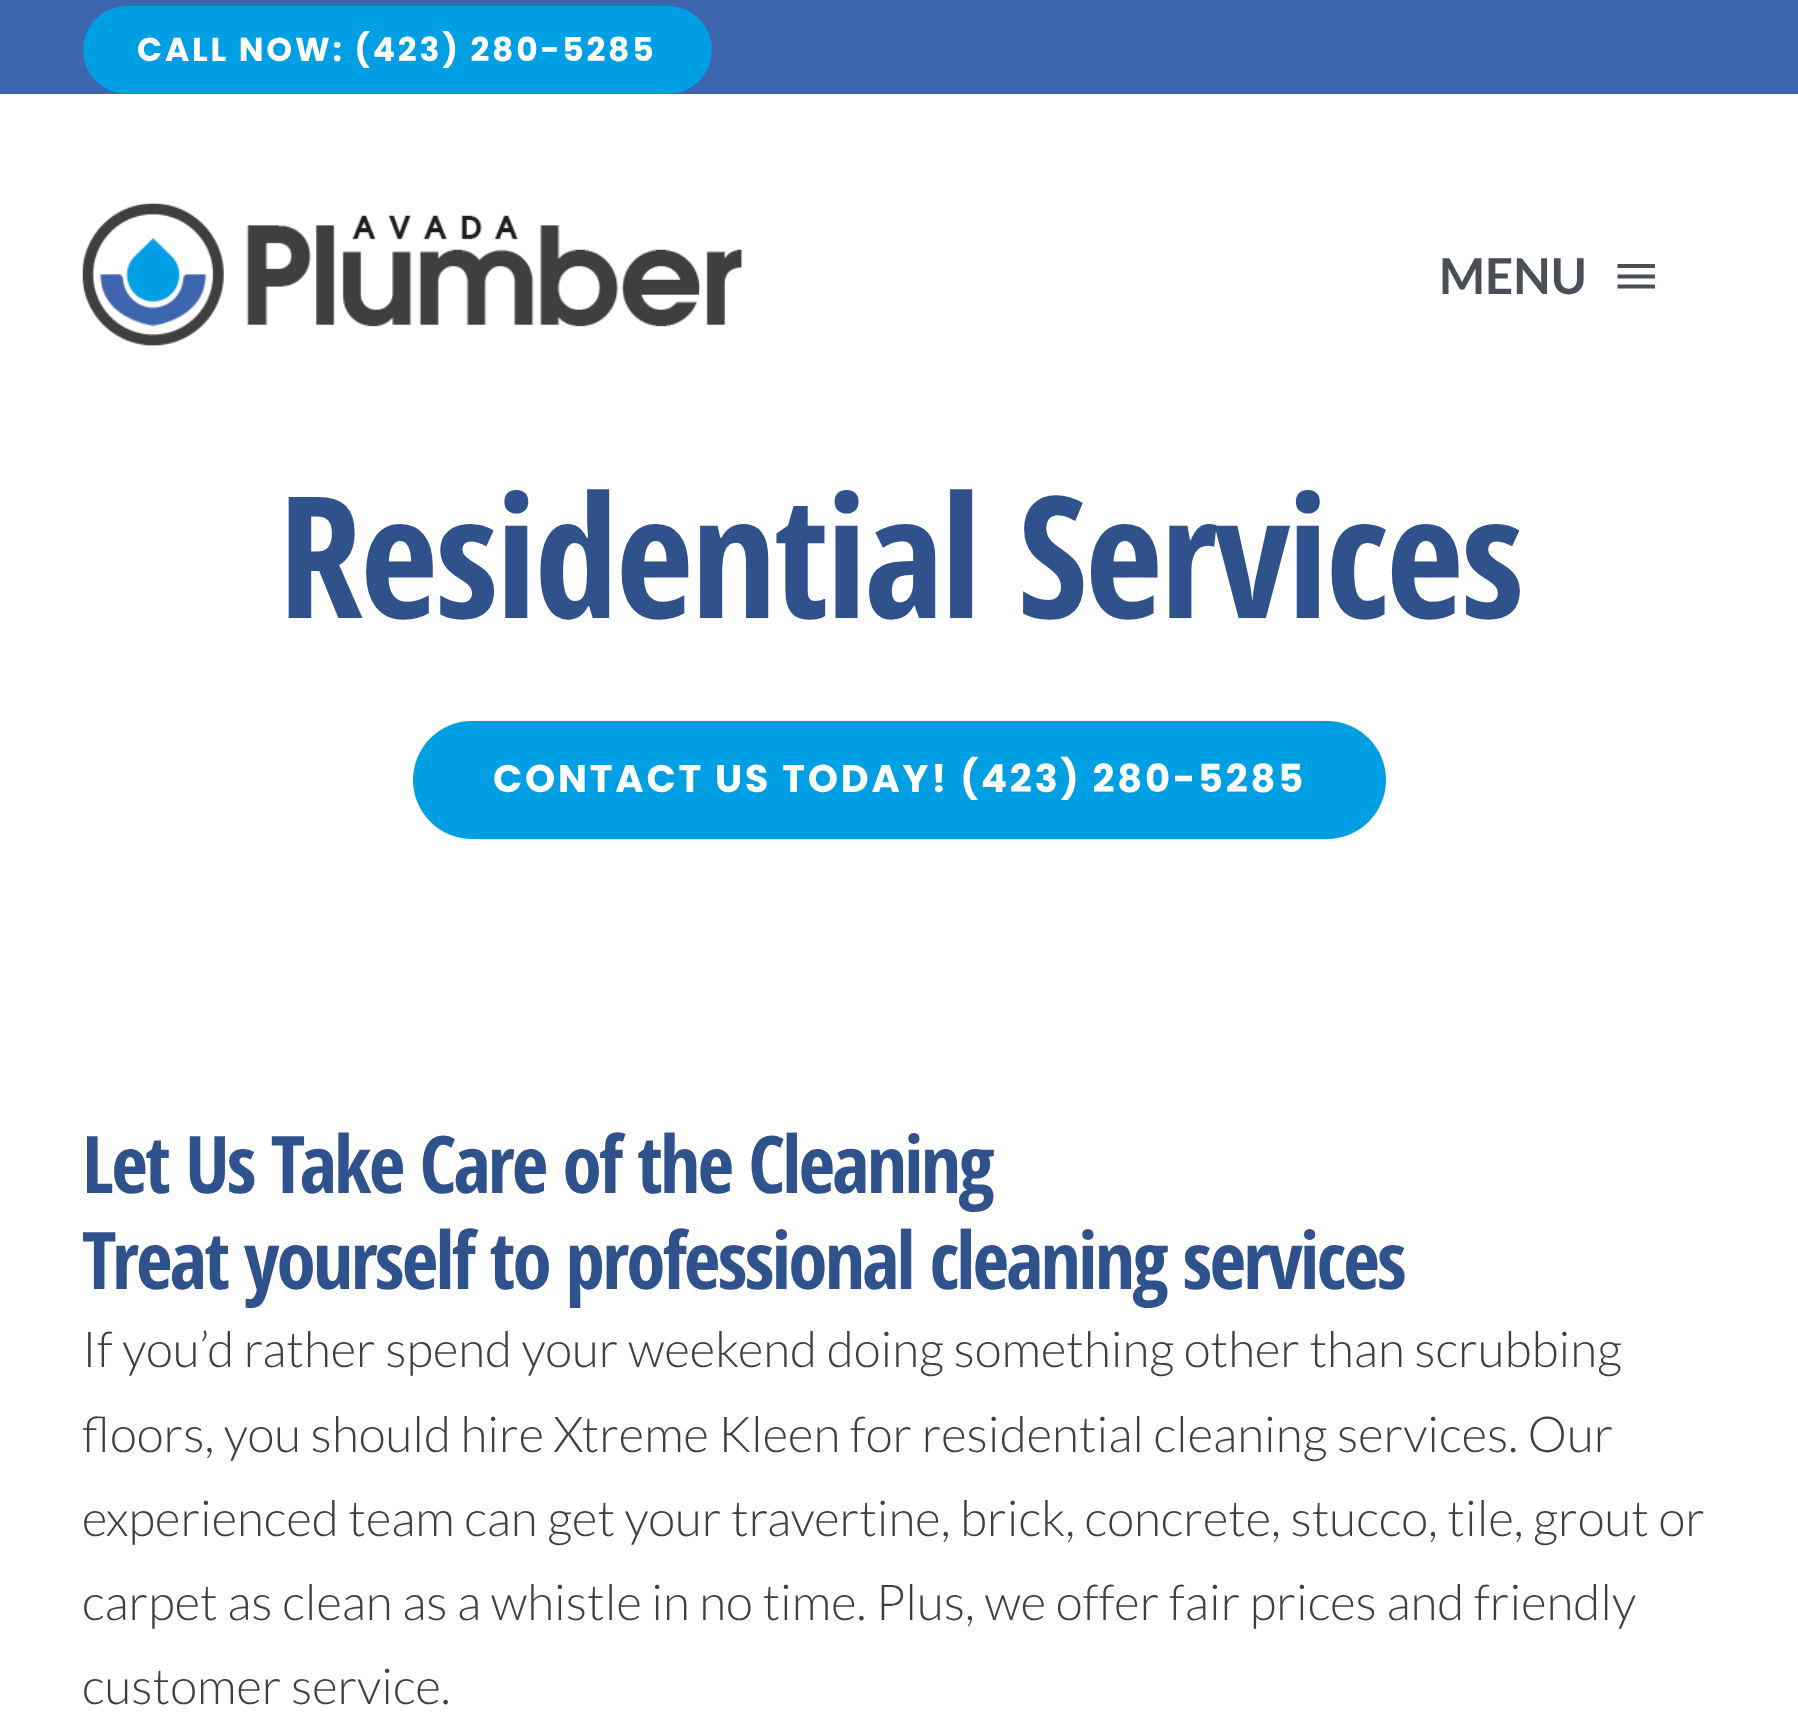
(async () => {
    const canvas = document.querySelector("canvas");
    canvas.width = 1798;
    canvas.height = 1727;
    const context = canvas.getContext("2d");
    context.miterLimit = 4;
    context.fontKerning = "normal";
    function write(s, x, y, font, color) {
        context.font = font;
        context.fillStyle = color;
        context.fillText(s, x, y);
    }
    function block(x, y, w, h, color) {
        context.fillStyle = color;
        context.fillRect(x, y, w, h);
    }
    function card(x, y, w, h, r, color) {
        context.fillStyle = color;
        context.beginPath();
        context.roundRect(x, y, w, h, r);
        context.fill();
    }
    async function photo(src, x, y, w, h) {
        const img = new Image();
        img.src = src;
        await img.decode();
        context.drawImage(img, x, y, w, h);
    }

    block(0, 0, 1798, 1727, "rgb(255, 255, 255)");
    block(0, 0, 1798, 94, "rgb(61, 102, 174)");
    card(83, 6, 629, 88, 44, "rgb(0, 159, 227)");
    context.letterSpacing = "2.75px";
    write("CALL NOW: (423) 280-5285", 137, 61, "bold 33px Poppins", "rgb(255, 255, 255)");
    await photo("media/1.png", 82, 203, 661, 144);
    context.letterSpacing = "0px";
    write("MENU", 1439, 294, "bold 49.5px Lato", "rgb(74, 78, 87)");
    context.beginPath();
    context.moveTo(1617.5, 264);
    context.lineTo(1655, 264);
    context.lineTo(1655, 268);
    context.lineTo(1617.5, 268);
    context.closePath();
    context.moveTo(1617.5, 278.5);
    context.lineTo(1617.5, 274.5);
    context.lineTo(1655, 274.5);
    context.lineTo(1655, 278.5);
    context.closePath();
    context.moveTo(1617.5, 288.5);
    context.lineTo(1617.5, 284.5);
    context.lineTo(1655, 284.5);
    context.lineTo(1655, 288.5);
    context.closePath();
    context.fill();
    context.letterSpacing = "-2.75px";
    write("Residential Services", 278, 618, "bold 169.5px Open Sans Condensed", "rgb(47, 81, 140)");
    card(413, 721, 973, 118, 59, "rgb(0, 159, 227)");
    context.letterSpacing = "2.75px";
    write("CONTACT US TODAY! (423) 280-5285", 493, 792, "bold 38.5px Poppins", "rgb(255, 255, 255)");
    context.letterSpacing = "-2.75px";
    write("Let Us Take Care of the Cleaning", 82, 1193, "bold 79.5px Open Sans Condensed", "rgb(47, 81, 140)");
    context.wordSpacing = "-0.25px";
    write("Treat yourself to professional cleaning services", 82, 1289, "bold 79.5px Open Sans Condensed", "rgb(47, 81, 140)");
    context.letterSpacing = "0px";
    context.wordSpacing = "0px";
    write("If you’d rather spend your weekend doing something other than scrubbing", 82, 1367, "300 49.5px Lato", "rgb(63, 63, 63)");
    write("floors, you should hire Xtreme Kleen for residential cleaning services. Our", 82, 1452, "300 49.5px Lato", "rgb(63, 63, 63)");
    write("experienced team can get your travertine, brick, concrete, stucco, tile, grout or", 82, 1536, "300 49.5px Lato", "rgb(63, 63, 63)");
    write("carpet as clean as a whistle in no time. Plus, we offer fair prices and friendly", 82, 1620, "300 49.5px Lato", "rgb(63, 63, 63)");
    write("customer service.", 82, 1704, "300 49.5px Lato", "rgb(63, 63, 63)");
})();
